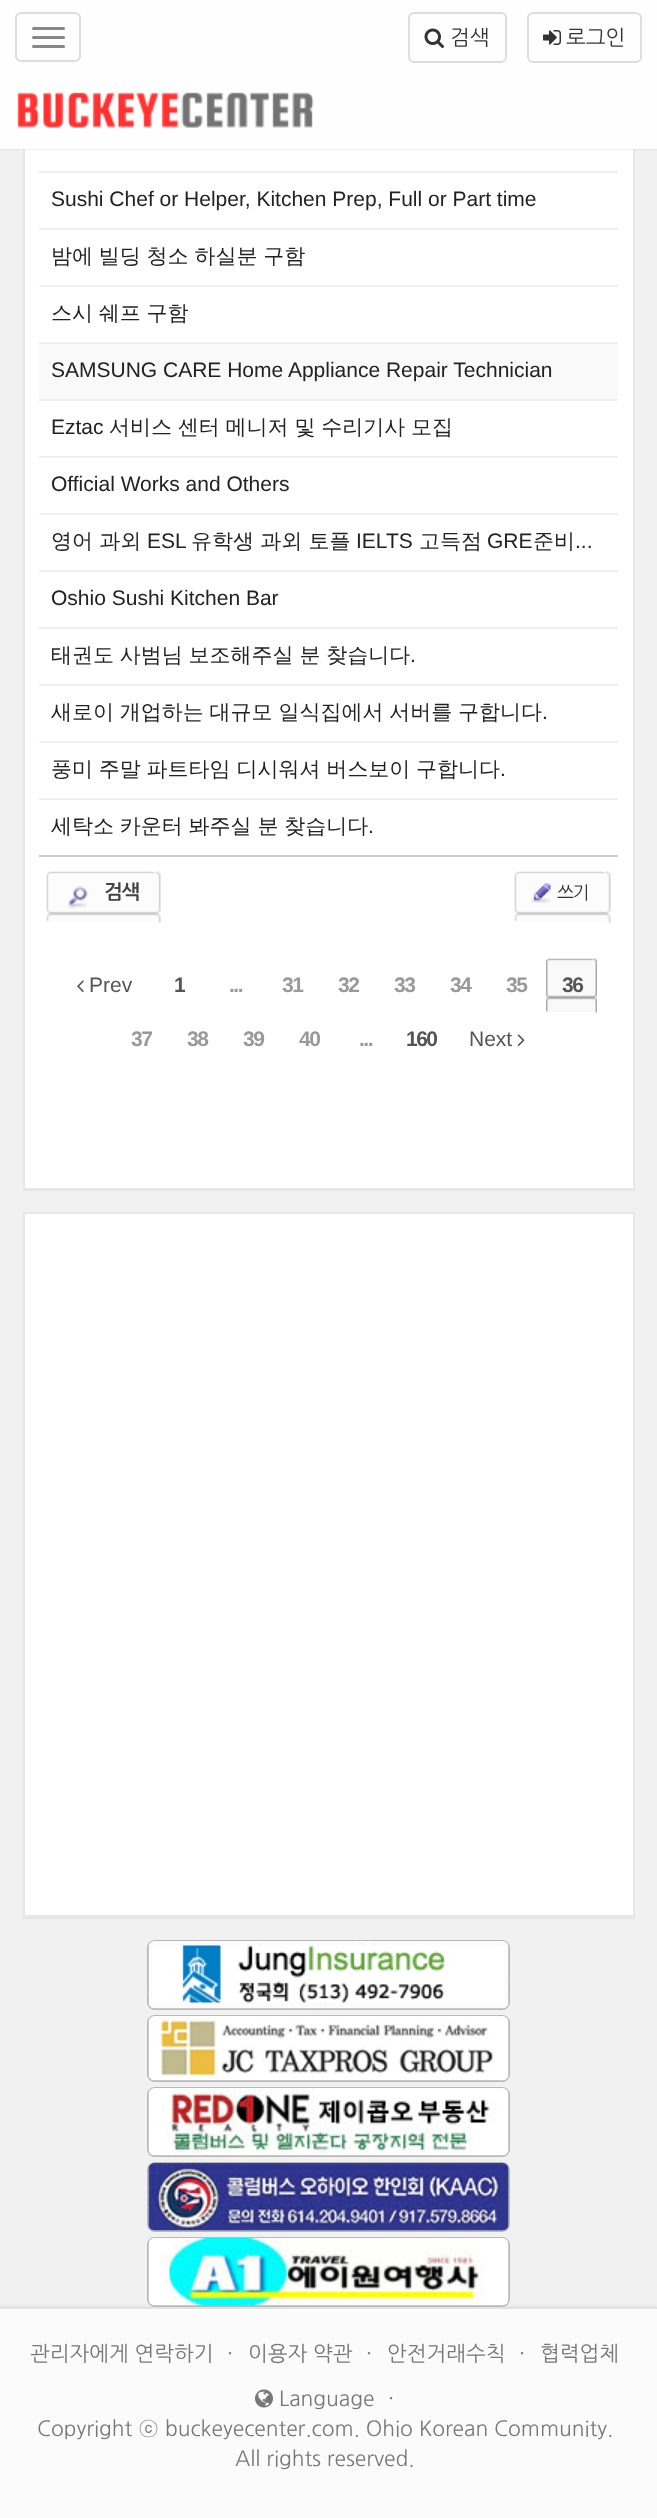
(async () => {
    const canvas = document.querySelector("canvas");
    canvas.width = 657;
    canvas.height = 2518;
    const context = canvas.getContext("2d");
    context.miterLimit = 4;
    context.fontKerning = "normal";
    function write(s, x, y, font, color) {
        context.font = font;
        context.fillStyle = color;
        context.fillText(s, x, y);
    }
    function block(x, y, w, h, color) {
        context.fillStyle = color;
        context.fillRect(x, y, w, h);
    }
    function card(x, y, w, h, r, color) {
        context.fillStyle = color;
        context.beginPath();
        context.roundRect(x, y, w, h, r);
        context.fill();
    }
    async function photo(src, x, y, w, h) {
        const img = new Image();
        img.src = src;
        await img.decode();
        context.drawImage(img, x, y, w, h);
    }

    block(0, 0, 657, 2518, "rgb(241, 241, 241)");
    context.fillStyle = "rgb(229, 229, 229)";
    context.beginPath();
    context.moveTo(23, 1190);
    context.lineTo(23, 1191);
    context.lineTo(635, 1191);
    context.lineTo(635, -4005);
    context.lineTo(634, -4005);
    context.lineTo(634, 1190);
    context.closePath();
    context.fill();
    block(25, 149, 608, 1039, "rgb(255, 255, 255)");
    context.strokeStyle = "rgb(231, 231, 231)";
    context.lineWidth = 2;
    context.strokeRect(24, -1, 610, 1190);
    block(0, 149, 657, 1, "rgba(0, 0, 0, 0.05)");
    block(0, 0, 657, 149, "rgb(254, 254, 254)");
    context.beginPath();
    context.roundRect(16, 13, 64, 48, 5);
    context.strokeStyle = "rgb(221, 221, 221)";
    context.stroke();
    card(32, 27, 33, 3, 1.5, "rgb(136, 136, 136)");
    card(32, 36, 33, 3, 1.5, "rgb(136, 136, 136)");
    card(32, 45, 33, 3, 1.5, "rgb(136, 136, 136)");
    context.beginPath();
    context.roundRect(409, 13, 97, 49, 5);
    context.stroke();
    await photo("media/1.png", 424, 28, 20, 20);
    write("검색", 450, 45, "21px NanumGothic", "rgb(51, 51, 51)");
    context.beginPath();
    context.roundRect(528, 13, 113, 49, 5);
    context.stroke();
    await photo("media/2.png", 543, 30, 18, 15);
    write("로그인", 566, 45, "21px NanumGothic", "rgb(51, 51, 51)");
    await photo("media/3.png", 17, 92, 297, 36);
    block(39, 171, 579, 2, "rgb(238, 238, 238)");
    block(39, 228, 579, 2, "rgb(238, 238, 238)");
    write("Sushi Chef or Helper, Kitchen Prep, Full or Part time", 51, 206, "21px Liberation Sans", "rgb(34, 34, 34)");
    block(39, 285, 579, 2, "rgb(238, 238, 238)");
    context.wordSpacing = "-0.5px";
    write("밤에 빌딩 청소 하실분 구함", 51, 263, "500 21px WenQuanYi Zen Hei", "rgb(34, 34, 34)");
    block(39, 342, 579, 2, "rgb(238, 238, 238)");
    write("스시 쉐프 구함", 51, 320, "500 21px WenQuanYi Zen Hei", "rgb(34, 34, 34)");
    block(39, 344, 579, 55, "rgb(249, 249, 249)");
    block(39, 399, 579, 2, "rgb(238, 238, 238)");
    context.wordSpacing = "0px";
    write("SAMSUNG CARE Home Appliance Repair Technician", 51, 377, "21px Liberation Sans", "rgb(34, 34, 34)");
    block(39, 456, 579, 2, "rgb(238, 238, 238)");
    write("Eztac", 51, 434, "21px Liberation Sans", "rgb(34, 34, 34)");
    context.wordSpacing = "-0.5px";
    write("서비스 센터 메니저 및 수리기사 모집", 109, 434, "500 21px WenQuanYi Zen Hei", "rgb(34, 34, 34)");
    block(39, 513, 579, 2, "rgb(238, 238, 238)");
    context.wordSpacing = "0px";
    write("Official Works and Others", 51, 491, "21px Liberation Sans", "rgb(34, 34, 34)");
    block(39, 570, 579, 2, "rgb(238, 238, 238)");
    write("영어 과외", 51, 548, "500 21px WenQuanYi Zen Hei", "rgb(34, 34, 34)");
    write("ESL", 147, 548, "21px Liberation Sans", "rgb(34, 34, 34)");
    write("유학생 과외 토플", 191, 548, "500 21px WenQuanYi Zen Hei", "rgb(34, 34, 34)");
    write("IELTS", 356, 548, "21px Liberation Sans", "rgb(34, 34, 34)");
    write("고득점", 419, 548, "500 21px WenQuanYi Zen Hei", "rgb(34, 34, 34)");
    write("GRE", 487, 548, "21px Liberation Sans", "rgb(34, 34, 34)");
    write("준비", 533, 548, "500 21px WenQuanYi Zen Hei", "rgb(34, 34, 34)");
    write("...", 575, 548, "21px Liberation Sans", "rgb(34, 34, 34)");
    block(39, 627, 579, 2, "rgb(238, 238, 238)");
    write("Oshio Sushi Kitchen Bar", 51, 605, "21px Liberation Sans", "rgb(34, 34, 34)");
    block(39, 684, 579, 2, "rgb(238, 238, 238)");
    context.wordSpacing = "-0.5px";
    write("태권도 사범님 보조해주실 분 찾습니다", 51, 662, "500 21px WenQuanYi Zen Hei", "rgb(34, 34, 34)");
    context.wordSpacing = "0px";
    write(".", 410, 662, "21px Liberation Sans", "rgb(34, 34, 34)");
    block(39, 741, 579, 2, "rgb(238, 238, 238)");
    context.wordSpacing = "-0.5px";
    write("새로이 개업하는 대규모 일식집에서 서버를 구합니다", 51, 719, "500 21px WenQuanYi Zen Hei", "rgb(34, 34, 34)");
    context.wordSpacing = "0px";
    write(".", 542, 719, "21px Liberation Sans", "rgb(34, 34, 34)");
    block(39, 798, 579, 2, "rgb(238, 238, 238)");
    context.wordSpacing = "-0.5px";
    write("풍미 주말 파트타임 디시워셔 버스보이 구합니다", 51, 776, "500 21px WenQuanYi Zen Hei", "rgb(34, 34, 34)");
    context.wordSpacing = "0px";
    write(".", 500, 776, "21px Liberation Sans", "rgb(34, 34, 34)");
    context.wordSpacing = "-0.5px";
    write("세탁소 카운터 봐주실 분 찾습니다", 51, 833, "500 21px WenQuanYi Zen Hei", "rgb(34, 34, 34)");
    context.wordSpacing = "0px";
    write(".", 368, 833, "21px Liberation Sans", "rgb(34, 34, 34)");
    block(39, 855, 579, 2, "rgb(204, 204, 204)");
    await photo("media/4.png", 46, 871, 110, 51);
    await photo("media/5.png", 67, 886, 21, 23);
    context.letterSpacing = "-1.5px";
    write("검색", 104, 899, "bold 20px NanumGothic", "rgb(68, 68, 68)");
    await photo("media/6.png", 156, 871, 5, 52);
    await photo("media/7.png", 514, 871, 92, 51);
    await photo("media/8.png", 531, 883, 20, 20);
    write("쓰기", 557, 899, "18px NanumGothic", "rgb(51, 51, 51)");
    await photo("media/9.png", 606, 871, 5, 52);
    await photo("media/10.png", 77, 980, 7, 12);
    context.letterSpacing = "0px";
    write("Prev", 89, 992, "21px Liberation Sans", "rgb(85, 85, 85)");
    context.letterSpacing = "-1.5px";
    write("1", 174, 992, "bold 21px Liberation Sans", "rgb(85, 85, 85)");
    write("...", 229, 992, "bold 21px Liberation Sans", "rgb(153, 153, 153)");
    write("31", 282, 992, "bold 21px Liberation Sans", "rgb(153, 153, 153)");
    write("32", 338, 992, "bold 21px Liberation Sans", "rgb(153, 153, 153)");
    write("33", 394, 992, "bold 21px Liberation Sans", "rgb(153, 153, 153)");
    write("34", 450, 992, "bold 21px Liberation Sans", "rgb(153, 153, 153)");
    write("35", 506, 992, "bold 21px Liberation Sans", "rgb(153, 153, 153)");
    await photo("media/11.png", 546, 958, 48, 54);
    write("36", 562, 992, "bold 21px Liberation Sans", "rgb(85, 85, 85)");
    await photo("media/12.png", 594, 958, 3, 55);
    write("37", 131, 1046, "bold 21px Liberation Sans", "rgb(153, 153, 153)");
    write("38", 187, 1046, "bold 21px Liberation Sans", "rgb(153, 153, 153)");
    write("39", 243, 1046, "bold 21px Liberation Sans", "rgb(153, 153, 153)");
    write("40", 299, 1046, "bold 21px Liberation Sans", "rgb(153, 153, 153)");
    write("...", 359, 1046, "bold 21px Liberation Sans", "rgb(153, 153, 153)");
    write("160", 406, 1046, "bold 21px Liberation Sans", "rgb(85, 85, 85)");
    context.letterSpacing = "0px";
    write("Next", 469, 1046, "21px Liberation Sans", "rgb(85, 85, 85)");
    await photo("media/13.png", 517, 1034, 8, 12);
    context.fillStyle = "rgb(229, 229, 229)";
    context.beginPath();
    context.moveTo(23, 1917);
    context.lineTo(23, 1919);
    context.lineTo(635, 1919);
    context.lineTo(635, 1214);
    context.lineTo(634, 1214);
    context.lineTo(634, 1917);
    context.closePath();
    context.fill();
    context.fillStyle = "rgb(255, 255, 255)";
    context.beginPath();
    context.rect(24, 1213, 610, 703);
    context.fill();
    context.strokeStyle = "rgb(231, 231, 231)";
    context.stroke();
    context.beginPath();
    context.roundRect(148, 1941, 361, 68, 7);
    context.strokeStyle = "rgb(185, 184, 184)";
    context.stroke();
    await photo("media/14.png", 148, 1941, 361, 68);
    context.beginPath();
    context.roundRect(148, 2016, 361, 65, 7);
    context.stroke();
    await photo("media/15.png", 148, 2016, 361, 65);
    context.beginPath();
    context.roundRect(148, 2088, 361, 68, 7);
    context.stroke();
    await photo("media/16.png", 148, 2088, 361, 68);
    context.beginPath();
    context.roundRect(148, 2163, 361, 68, 7);
    context.stroke();
    await photo("media/17.png", 148, 2163, 361, 68);
    context.fillStyle = "rgba(0, 0, 0, 0.05)";
    context.filter = "blur(1.5px)";
    context.beginPath();
    context.rect(0, 2306, 657, 211);
    context.fill();
    context.filter = "none";
    context.beginPath();
    context.roundRect(148, 2238, 361, 68, 7);
    context.stroke();
    await photo("media/18.png", 148, 2238, 361, 68);
    block(0, 2311, 657, 207, "rgb(251, 251, 251)");
    block(0, 2309, 657, 2, "rgb(253, 253, 253)");
    block(0, 2307, 657, 2, "rgb(226, 226, 226)");
    write("관리자에게 연락하기", 30, 2361, "21px NanumGothic", "rgb(119, 119, 119)");
    write("·", 227, 2361, "21px NanumGothic", "rgb(119, 119, 119)");
    write("이용자 약관", 248, 2361, "21px NanumGothic", "rgb(119, 119, 119)");
    write("·", 366, 2361, "21px NanumGothic", "rgb(119, 119, 119)");
    write("안전거래수칙", 387, 2361, "21px NanumGothic", "rgb(119, 119, 119)");
    write("·", 519, 2361, "21px NanumGothic", "rgb(119, 119, 119)");
    write("협력업체", 540, 2361, "21px NanumGothic", "rgb(119, 119, 119)");
    await photo("media/19.png", 255, 2389, 18, 19);
    write("Language", 279, 2406, "21px NanumGothic", "rgb(119, 119, 119)");
    write("·", 388, 2406, "21px NanumGothic", "rgb(119, 119, 119)");
    write("Copyright", 37, 2436, "21px NanumGothic", "rgb(119, 119, 119)");
    write("ⓒ", 138, 2436, "21px Dotum", "rgb(119, 119, 119)");
    write("buckeyecenter.com. Ohio Korean Community.", 165, 2436, "21px NanumGothic", "rgb(119, 119, 119)");
    write("All rights reserved.", 235, 2466, "21px NanumGothic", "rgb(119, 119, 119)");
})();
